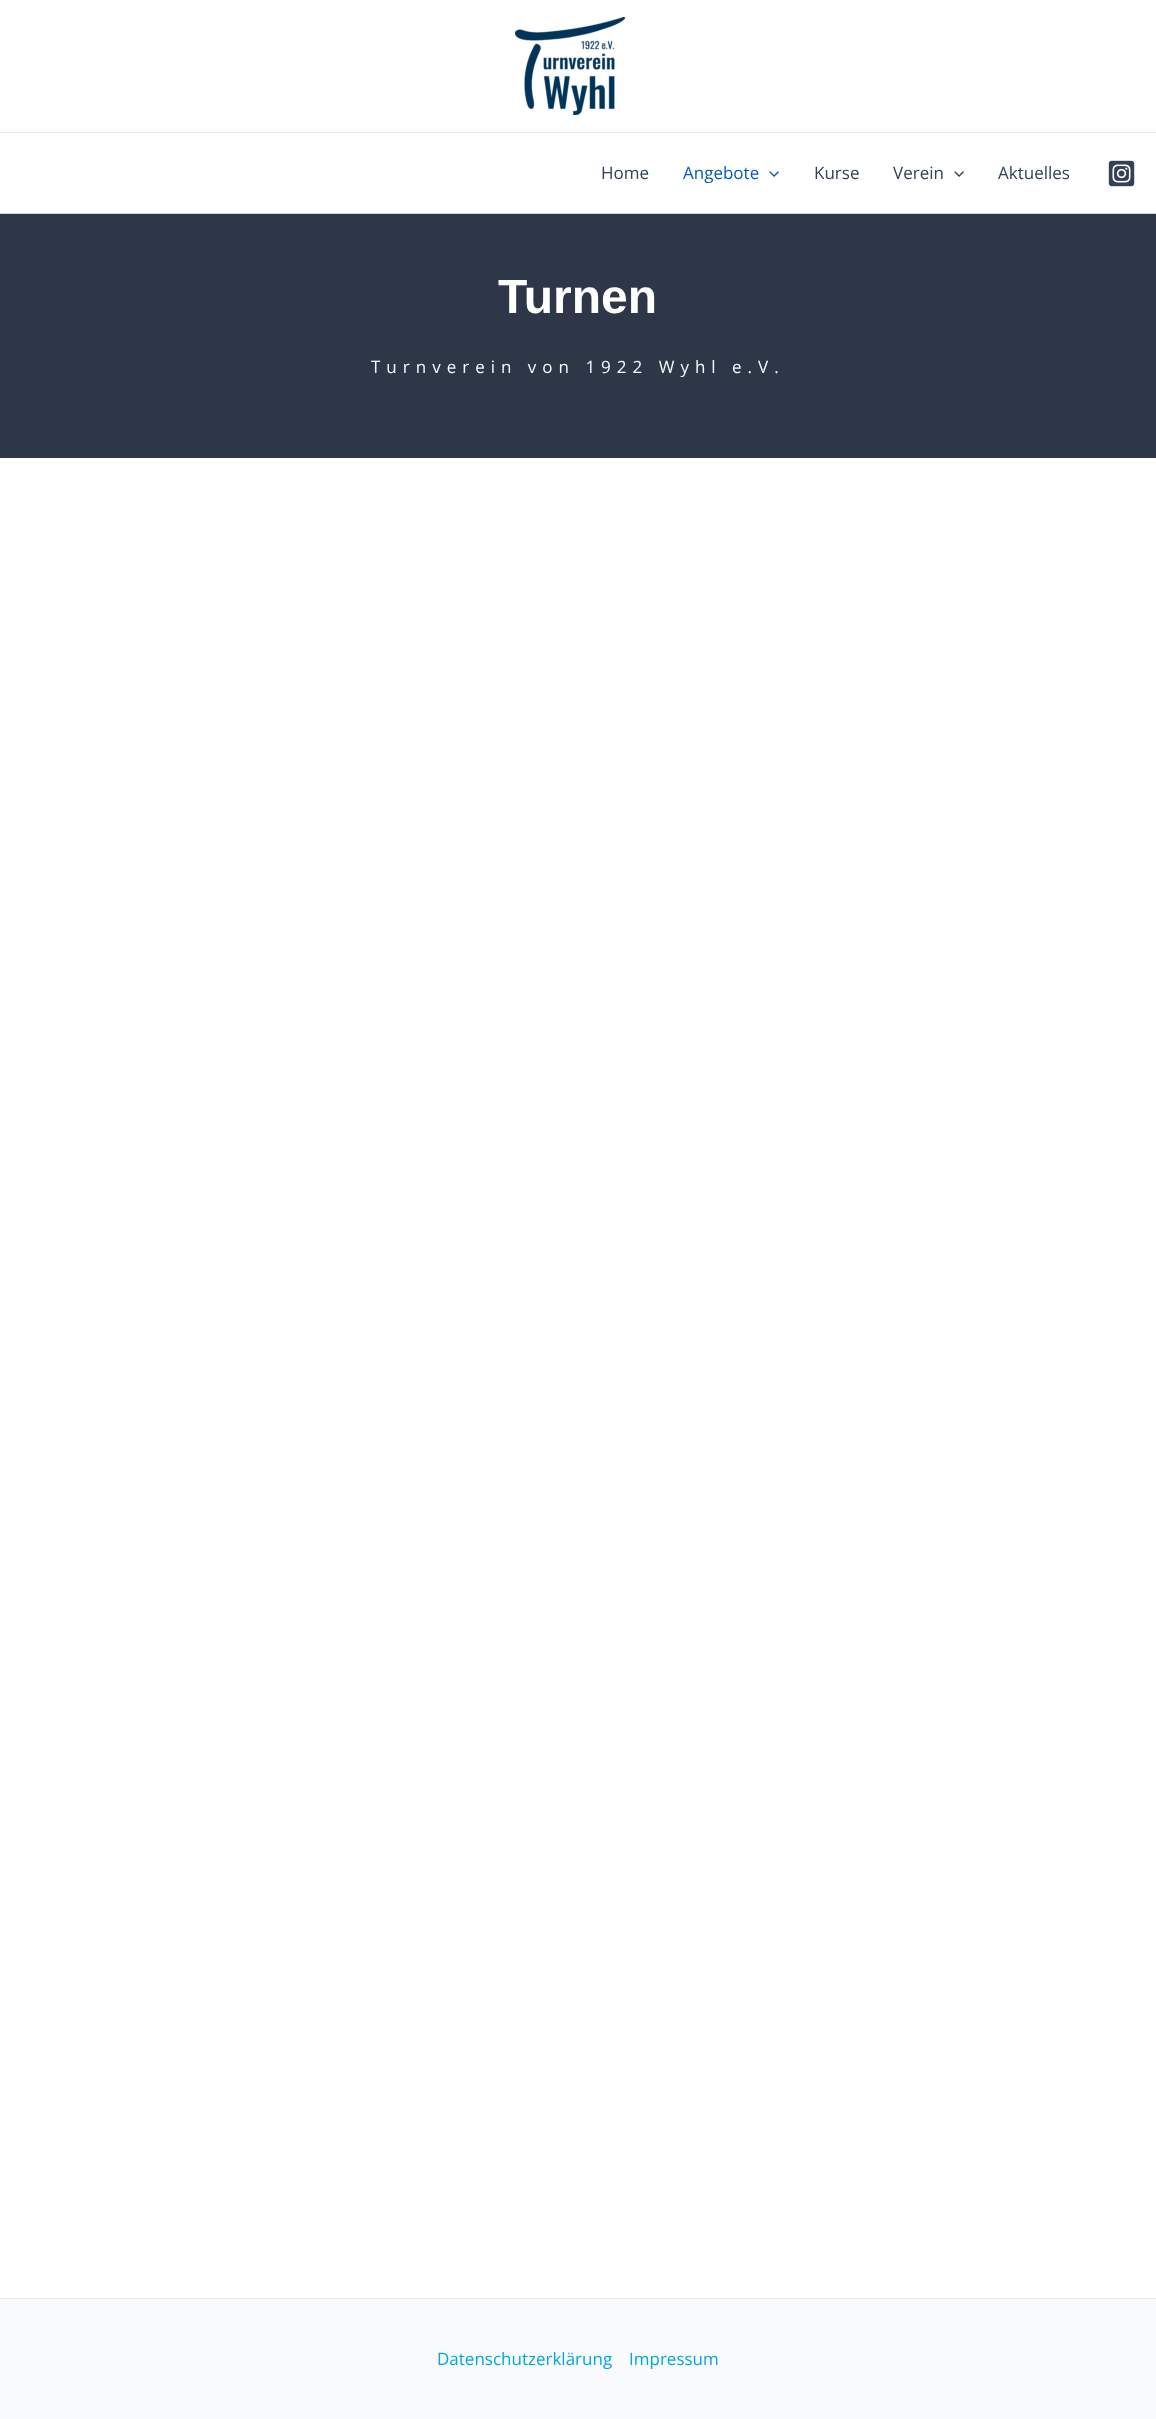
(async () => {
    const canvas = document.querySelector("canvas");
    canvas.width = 1156;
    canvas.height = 2419;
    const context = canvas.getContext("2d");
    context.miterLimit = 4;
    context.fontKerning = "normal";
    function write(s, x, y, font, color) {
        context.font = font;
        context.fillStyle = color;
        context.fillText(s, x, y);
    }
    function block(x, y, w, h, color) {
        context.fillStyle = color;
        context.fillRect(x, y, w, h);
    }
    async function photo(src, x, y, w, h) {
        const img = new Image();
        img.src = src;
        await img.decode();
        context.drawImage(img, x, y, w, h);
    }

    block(0, 0, 1156, 2419, "rgb(255, 255, 255)");
    block(0, 132, 1156, 1, "rgb(226, 232, 240)");
    await photo("media/1.png", 515, 17, 110, 98);
    block(0, 213, 1156, 1, "rgb(203, 213, 225)");
    write("Home", 601, 179, "17px Open Sans", "rgb(51, 65, 85)");
    write("Angebote", 683, 179, "17px Open Sans", "rgb(4, 92, 180)");
    await photo("media/2.png", 769, 171, 10, 6);
    write("Kurse", 814, 179, "17px Open Sans", "rgb(51, 65, 85)");
    write("Verein", 893, 179, "17px Open Sans", "rgb(51, 65, 85)");
    await photo("media/3.png", 954, 171, 10, 6);
    write("Aktuelles", 998, 179, "17px Open Sans", "rgb(51, 65, 85)");
    await photo("media/4.png", 1108, 160, 27, 27);
    block(0, 214, 1156, 244, "rgb(45, 55, 72)");
    write("Turnen", 498, 313, "bold 48px Liberation Sans", "rgb(255, 255, 255)");
    context.letterSpacing = "6px";
    write("Turnverein von 1922 Wyhl e.V.", 371, 373, "17px Open Sans", "rgb(247, 250, 252)");
    block(0, 2299, 1156, 120, "rgb(249, 250, 251)");
    block(0, 2298, 1156, 1, "rgb(226, 232, 240)");
    context.letterSpacing = "0px";
    write("Datenschutzerklärung", 437, 2365, "17px Open Sans", "rgb(1, 169, 217)");
    write("Impressum", 629, 2365, "17px Open Sans", "rgb(1, 169, 217)");
})();
